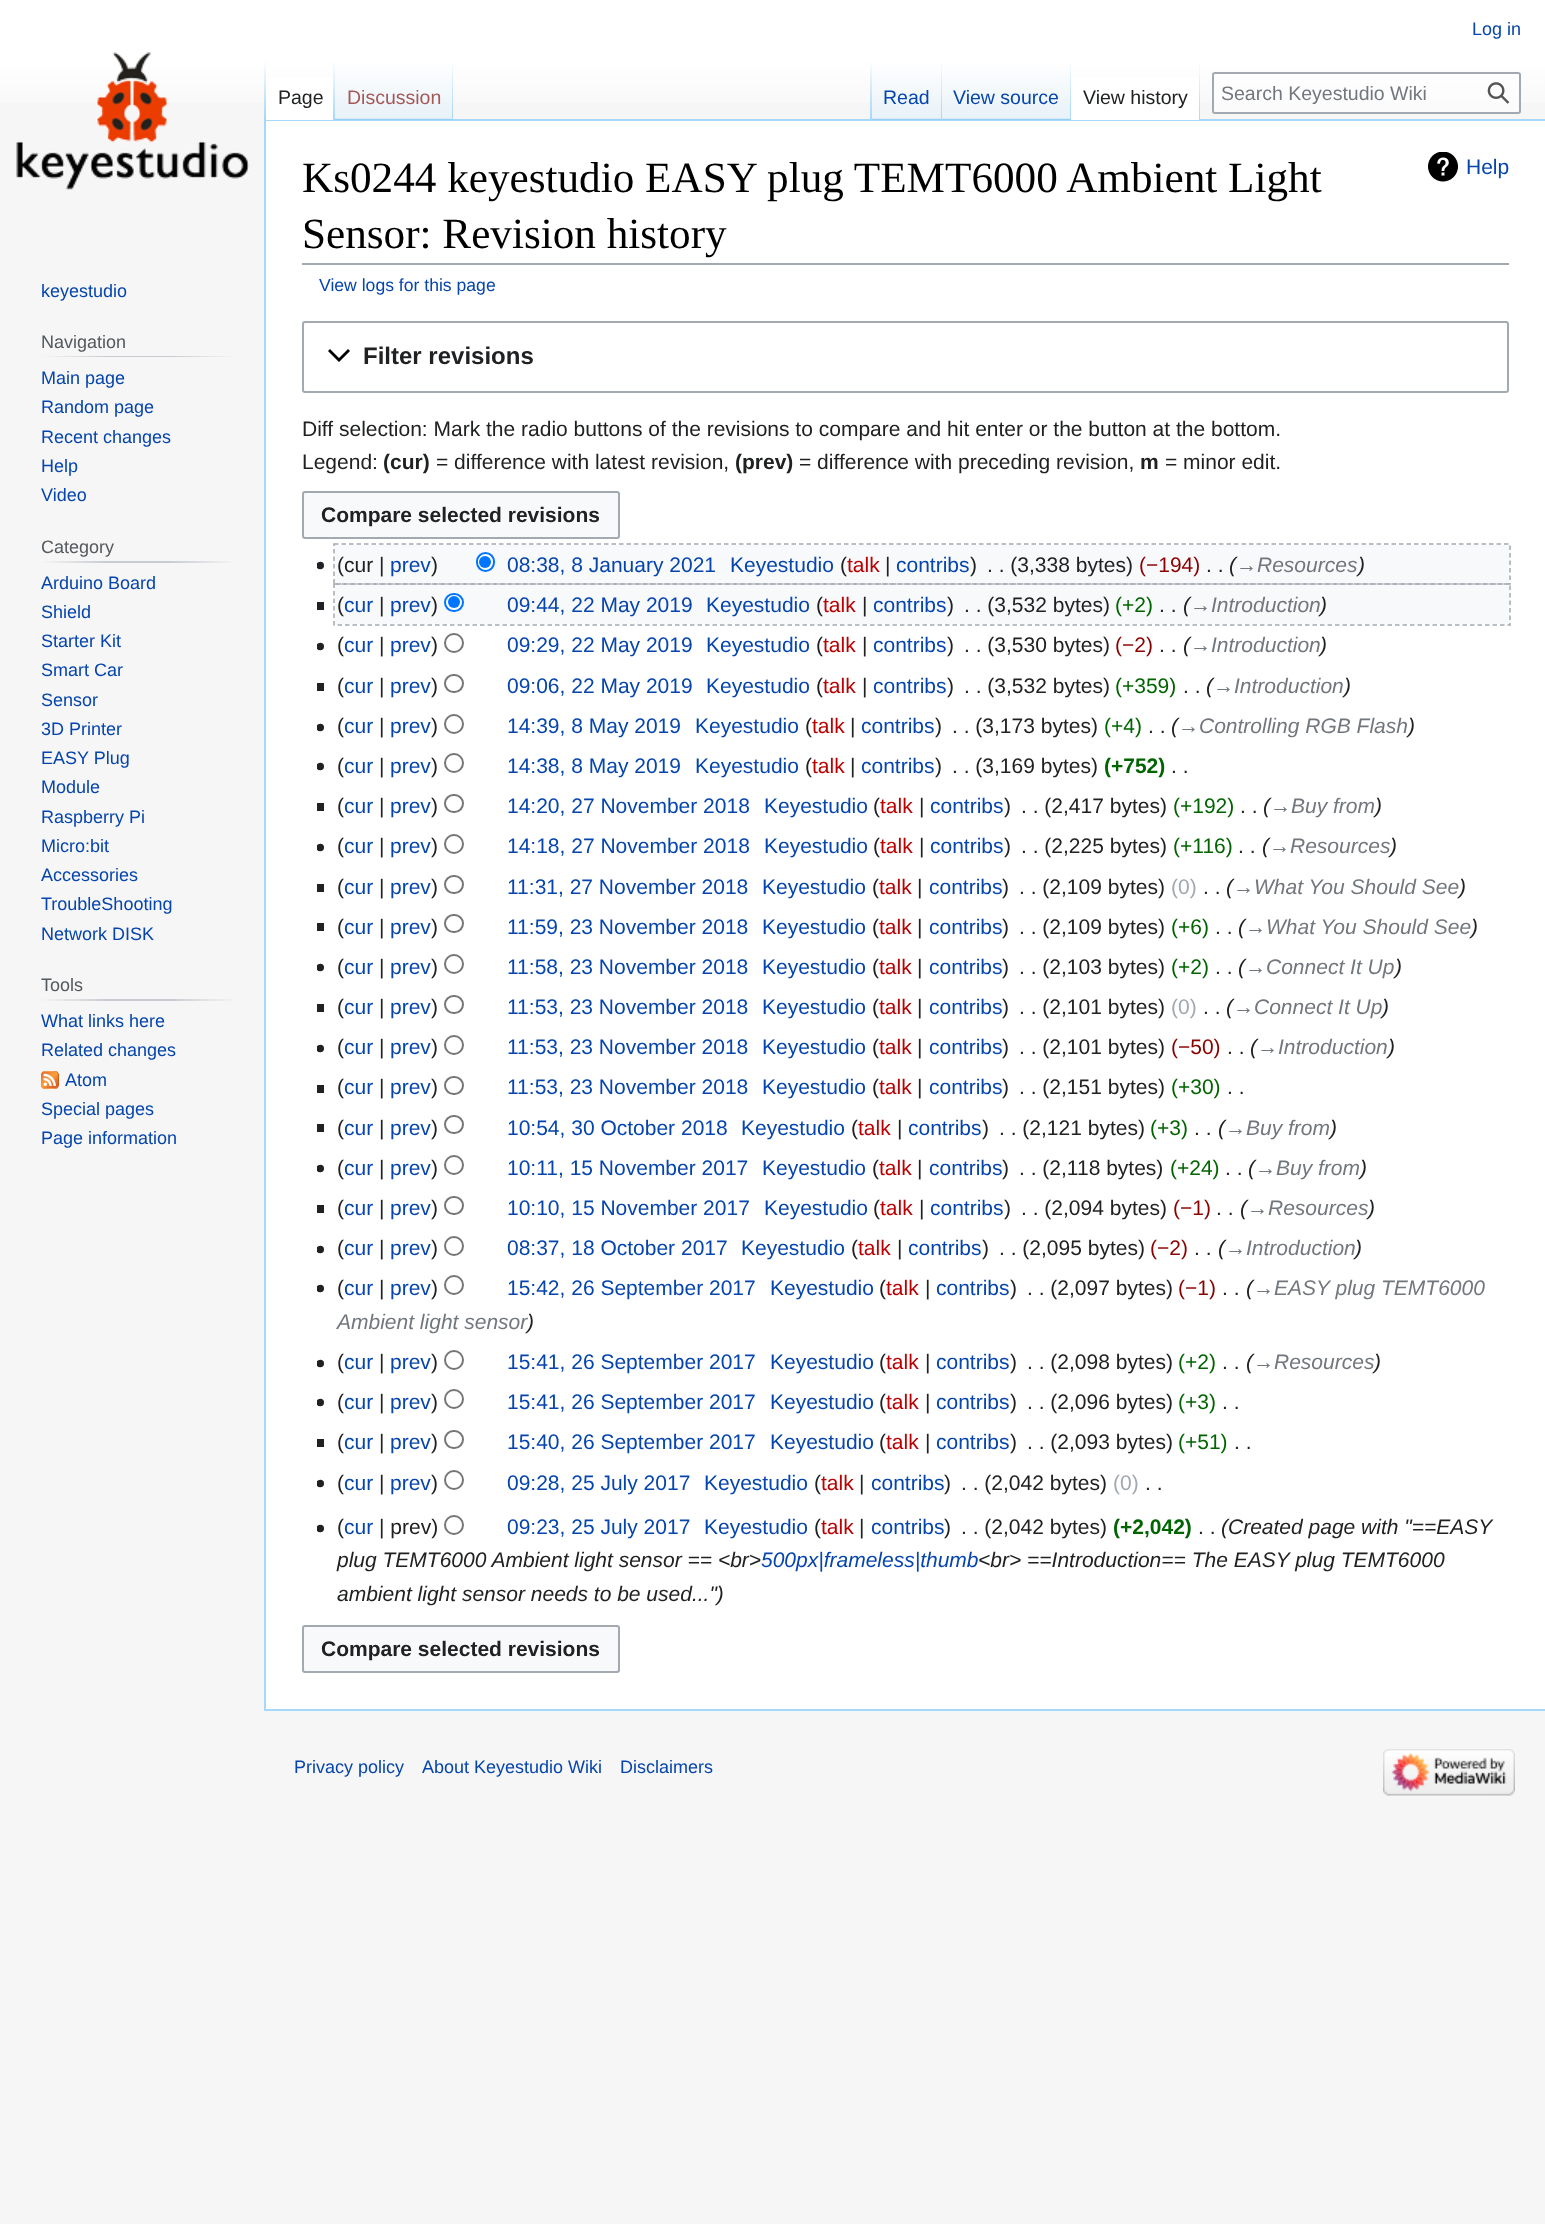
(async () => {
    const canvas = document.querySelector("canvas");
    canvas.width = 1545;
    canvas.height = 2224;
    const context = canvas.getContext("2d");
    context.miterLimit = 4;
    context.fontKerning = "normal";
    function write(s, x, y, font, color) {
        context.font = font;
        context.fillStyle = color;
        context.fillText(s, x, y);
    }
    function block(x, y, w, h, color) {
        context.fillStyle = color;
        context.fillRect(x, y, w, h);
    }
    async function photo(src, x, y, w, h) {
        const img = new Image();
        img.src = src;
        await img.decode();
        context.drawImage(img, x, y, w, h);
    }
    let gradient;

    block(0, 0, 1545, 2224, "rgb(246, 246, 246)");
    gradient = context.createLinearGradient(773, 0, 773, 120);
    gradient.addColorStop(0.5, "rgb(255, 255, 255)");
    gradient.addColorStop(1, "rgb(246, 246, 246)");
    context.fillStyle = gradient;
    context.fillRect(0, 0, 1545, 103);
    write("Log in", 1472, 35, "18px Liberation Sans", "rgb(6, 69, 173)");
    block(264, 119, 1281, 2, "rgb(167, 215, 249)");
    block(264, 1709, 1281, 2, "rgb(167, 215, 249)");
    block(264, 119, 2, 1591, "rgb(167, 215, 249)");
    gradient = context.createLinearGradient(265, 60, 265, 120);
    gradient.addColorStop(0, "rgba(167, 215, 249, 0)");
    gradient.addColorStop(1, "rgb(167, 215, 249)");
    context.fillStyle = gradient;
    context.fillRect(264, 60, 2, 60);
    block(266, 77, 67, 43, "rgb(255, 255, 255)");
    gradient = context.createLinearGradient(334, 60, 334, 120);
    gradient.addColorStop(0, "rgb(255, 255, 255)");
    gradient.addColorStop(1, "rgb(167, 215, 249)");
    context.fillStyle = gradient;
    context.fillRect(333, 60, 2, 60);
    write("Page", 278, 104, "19.5px Liberation Sans", "rgb(32, 33, 34)");
    gradient = context.createLinearGradient(394, 120, 394, 60);
    gradient.addColorStop(0, "rgb(119, 193, 246)");
    gradient.addColorStop(0.03, "rgb(232, 242, 248)");
    gradient.addColorStop(1, "rgb(255, 255, 255)");
    context.fillStyle = gradient;
    context.fillRect(335, 69, 118, 51);
    gradient = context.createLinearGradient(452, 60, 452, 120);
    gradient.addColorStop(0, "rgba(167, 215, 249, 0)");
    gradient.addColorStop(1, "rgb(167, 215, 249)");
    context.fillStyle = gradient;
    context.fillRect(452, 60, 1, 60);
    write("Discussion", 347, 104, "19.5px Liberation Sans", "rgb(165, 88, 88)");
    gradient = context.createLinearGradient(871, 60, 871, 120);
    gradient.addColorStop(0, "rgba(167, 215, 249, 0)");
    gradient.addColorStop(1, "rgb(167, 215, 249)");
    context.fillStyle = gradient;
    context.fillRect(870, 60, 2, 60);
    gradient = context.createLinearGradient(907, 120, 907, 60);
    gradient.addColorStop(0, "rgb(119, 193, 246)");
    gradient.addColorStop(0.03, "rgb(232, 242, 248)");
    gradient.addColorStop(1, "rgb(255, 255, 255)");
    context.fillStyle = gradient;
    context.fillRect(872, 69, 70, 51);
    gradient = context.createLinearGradient(941, 60, 941, 120);
    gradient.addColorStop(0, "rgba(167, 215, 249, 0)");
    gradient.addColorStop(1, "rgb(167, 215, 249)");
    context.fillStyle = gradient;
    context.fillRect(941, 60, 1, 60);
    write("Read", 883, 104, "19.5px Liberation Sans", "rgb(6, 69, 173)");
    gradient = context.createLinearGradient(1007, 120, 1007, 60);
    gradient.addColorStop(0, "rgb(119, 193, 246)");
    gradient.addColorStop(0.03, "rgb(232, 242, 248)");
    gradient.addColorStop(1, "rgb(255, 255, 255)");
    context.fillStyle = gradient;
    context.fillRect(942, 69, 129, 51);
    gradient = context.createLinearGradient(1070, 60, 1070, 120);
    gradient.addColorStop(0, "rgba(167, 215, 249, 0)");
    gradient.addColorStop(1, "rgb(167, 215, 249)");
    context.fillStyle = gradient;
    context.fillRect(1070, 60, 1, 60);
    write("View source", 953, 104, "19.5px Liberation Sans", "rgb(6, 69, 173)");
    block(1071, 77, 128, 43, "rgb(255, 255, 255)");
    gradient = context.createLinearGradient(1199, 60, 1199, 120);
    gradient.addColorStop(0, "rgb(255, 255, 255)");
    gradient.addColorStop(1, "rgb(167, 215, 249)");
    context.fillStyle = gradient;
    context.fillRect(1199, 60, 1, 60);
    write("View history", 1083, 104, "19.5px Liberation Sans", "rgb(32, 33, 34)");
    context.fillStyle = "rgba(255, 255, 255, 0.5)";
    context.beginPath();
    context.roundRect(1213, 73, 307, 40, 2);
    context.fill();
    context.strokeStyle = "rgb(162, 169, 177)";
    context.lineWidth = 2;
    context.stroke();
    write("Search Keyestudio Wiki", 1221, 100, "19.5px Liberation Sans", "rgb(114, 119, 125)");
    await photo("media/1.png", 1487, 82, 23, 22);
    await photo("media/2.png", 16, 52, 234, 138);
    write("keyestudio", 41, 297, "18px Liberation Sans", "rgb(6, 69, 173)");
    gradient = context.createLinearGradient(41, 356, 237, 356);
    gradient.addColorStop(0, "rgb(246, 246, 246)");
    gradient.addColorStop(0.33, "rgb(200, 204, 209)");
    gradient.addColorStop(0.66, "rgb(200, 204, 209)");
    gradient.addColorStop(1, "rgb(246, 246, 246)");
    context.fillStyle = gradient;
    context.fillRect(41, 356, 196, 1);
    write("Navigation", 41, 348, "18px Liberation Sans", "rgb(84, 89, 93)");
    write("Main page", 41, 384, "18px Liberation Sans", "rgb(6, 69, 173)");
    write("Random page", 41, 413, "18px Liberation Sans", "rgb(6, 69, 173)");
    write("Recent changes", 41, 443, "18px Liberation Sans", "rgb(6, 69, 173)");
    write("Help", 41, 472, "18px Liberation Sans", "rgb(6, 69, 173)");
    write("Video", 41, 501, "18px Liberation Sans", "rgb(6, 69, 173)");
    gradient = context.createLinearGradient(41, 562, 237, 562);
    gradient.addColorStop(0, "rgb(246, 246, 246)");
    gradient.addColorStop(0.33, "rgb(200, 204, 209)");
    gradient.addColorStop(0.66, "rgb(200, 204, 209)");
    gradient.addColorStop(1, "rgb(246, 246, 246)");
    context.fillStyle = gradient;
    context.fillRect(41, 561, 196, 2);
    write("Category", 41, 553, "18px Liberation Sans", "rgb(84, 89, 93)");
    write("Arduino Board", 41, 589, "18px Liberation Sans", "rgb(6, 69, 173)");
    write("Shield", 41, 618, "18px Liberation Sans", "rgb(6, 69, 173)");
    write("Starter Kit", 41, 647, "18px Liberation Sans", "rgb(6, 69, 173)");
    write("Smart Car", 41, 676, "18px Liberation Sans", "rgb(6, 69, 173)");
    write("Sensor", 41, 706, "18px Liberation Sans", "rgb(6, 69, 173)");
    write("3D Printer", 41, 735, "18px Liberation Sans", "rgb(6, 69, 173)");
    write("EASY Plug", 41, 764, "18px Liberation Sans", "rgb(6, 69, 173)");
    write("Module", 41, 793, "18px Liberation Sans", "rgb(6, 69, 173)");
    write("Raspberry Pi", 41, 823, "18px Liberation Sans", "rgb(6, 69, 173)");
    write("Micro:bit", 41, 852, "18px Liberation Sans", "rgb(6, 69, 173)");
    write("Accessories", 41, 881, "18px Liberation Sans", "rgb(6, 69, 173)");
    write("TroubleShooting", 41, 910, "18px Liberation Sans", "rgb(6, 69, 173)");
    write("Network DISK", 41, 940, "18px Liberation Sans", "rgb(6, 69, 173)");
    gradient = context.createLinearGradient(41, 1000, 237, 1000);
    gradient.addColorStop(0, "rgb(246, 246, 246)");
    gradient.addColorStop(0.33, "rgb(200, 204, 209)");
    gradient.addColorStop(0.66, "rgb(200, 204, 209)");
    gradient.addColorStop(1, "rgb(246, 246, 246)");
    context.fillStyle = gradient;
    context.fillRect(41, 999, 196, 2);
    write("Tools", 41, 991, "18px Liberation Sans", "rgb(84, 89, 93)");
    write("What links here", 41, 1027, "18px Liberation Sans", "rgb(6, 69, 173)");
    write("Related changes", 41, 1056, "18px Liberation Sans", "rgb(6, 69, 173)");
    await photo("media/3.png", 41, 1071, 18, 18);
    write("Atom", 65, 1086, "18px Liberation Sans", "rgb(6, 69, 173)");
    write("Special pages", 41, 1115, "18px Liberation Sans", "rgb(6, 69, 173)");
    write("Page information", 41, 1144, "18px Liberation Sans", "rgb(6, 69, 173)");
    block(266, 121, 1279, 1588, "rgb(255, 255, 255)");
    block(302, 263, 1207, 2, "rgb(162, 169, 177)");
    write("Ks0244 keyestudio EASY plug TEMT6000 Ambient Light", 302, 192, "43.2px Liberation Serif", "rgb(0, 0, 0)");
    write("Sensor: Revision history", 302, 248, "43.2px Liberation Serif", "rgb(0, 0, 0)");
    await photo("media/4.png", 1428, 152, 30, 30);
    write("Help", 1466, 174, "21px Liberation Sans", "rgb(6, 69, 173)");
    write("View logs for this page", 319, 291, "17.6px Liberation Sans", "rgb(6, 69, 173)");
    context.beginPath();
    context.roundRect(303, 322, 1205, 70, 2);
    context.stroke();
    context.fillStyle = "rgb(0, 0, 0)";
    context.beginPath();
    context.moveTo(348, 349);
    context.lineTo(339, 358);
    context.lineTo(330, 349);
    context.lineTo(328, 351);
    context.lineTo(339, 362);
    context.lineTo(350, 351);
    context.closePath();
    context.fill();
    write("Filter revisions", 363, 364, "bold 24px Liberation Sans", "rgb(32, 33, 34)");
    write("Diff selection: Mark the radio buttons of the revisions to compare and hit enter or the button at the bottom.", 302, 436, "21px Liberation Sans", "rgb(32, 33, 34)");
    write("Legend:", 302, 469, "21px Liberation Sans", "rgb(32, 33, 34)");
    write("(cur)", 383, 469, "bold 21px Liberation Sans", "rgb(32, 33, 34)");
    write("= difference with latest revision,", 436, 469, "21px Liberation Sans", "rgb(32, 33, 34)");
    write("(prev)", 735, 469, "bold 21px Liberation Sans", "rgb(32, 33, 34)");
    write("= difference with preceding revision,", 799, 469, "21px Liberation Sans", "rgb(32, 33, 34)");
    write("m", 1140, 469, "bold 21px Liberation Sans", "rgb(32, 33, 34)");
    write("= minor edit.", 1165, 469, "21px Liberation Sans", "rgb(32, 33, 34)");
    context.fillStyle = "rgb(248, 249, 250)";
    context.beginPath();
    context.roundRect(303, 492, 316, 46, 2);
    context.fill();
    context.stroke();
    write("Compare selected revisions", 321, 522, "bold 21px Liberation Sans", "rgb(32, 33, 34)");
    block(335, 545, 1174, 39, "rgb(248, 249, 250)");
    await photo("media/5.png", 317, 561, 7, 9);
    write("(cur |", 337, 572, "21px Liberation Sans", "rgb(32, 33, 34)");
    write("prev", 390, 572, "21px Liberation Sans", "rgb(6, 69, 173)");
    write(")", 431, 572, "21px Liberation Sans", "rgb(32, 33, 34)");
    context.fillStyle = "rgb(255, 255, 255)";
    context.beginPath();
    context.roundRect(477, 553, 17, 18, 8.5);
    context.fill();
    context.strokeStyle = "rgb(0, 117, 255)";
    context.stroke();
    context.fillStyle = "rgb(0, 117, 255)";
    context.beginPath();
    context.arc(485, 562, 6, 0, Math.PI * 2);
    context.fill();
    write("08:38, 8 January 2021", 507, 572, "21px Liberation Sans", "rgb(6, 69, 173)");
    write("Keyestudio", 730, 572, "21px Liberation Sans", "rgb(6, 69, 173)");
    write("(", 840, 572, "21px Liberation Sans", "rgb(32, 33, 34)");
    write("talk", 847, 572, "21px Liberation Sans", "rgb(186, 0, 0)");
    write("|", 885, 572, "21px Liberation Sans", "rgb(32, 33, 34)");
    write("contribs", 896, 572, "21px Liberation Sans", "rgb(6, 69, 173)");
    write(")", 970, 572, "21px Liberation Sans", "rgb(32, 33, 34)");
    write(". . (3,338 bytes)", 987, 572, "21px Liberation Sans", "rgb(32, 33, 34)");
    write("(−194)", 1139, 572, "21px Liberation Sans", "rgb(139, 0, 0)");
    write(". .", 1206, 572, "21px Liberation Sans", "rgb(32, 33, 34)");
    write("(", 1229, 572, "italic 21px Liberation Sans", "rgb(32, 33, 34)");
    write("→Resources", 1236, 572, "italic 21px Liberation Sans", "rgb(114, 119, 125)");
    write(")", 1358, 572, "italic 21px Liberation Sans", "rgb(32, 33, 34)");
    context.beginPath();
    context.moveTo(334, 544);
    context.lineTo(1510, 544);
    context.lineTo(1510, 584);
    context.lineTo(334, 584);
    context.closePath();
    context.strokeStyle = "rgb(162, 169, 177)";
    context.lineWidth = 1.5;
    context.setLineDash([4.5, 3]);
    context.stroke();
    block(335, 585, 1174, 39, "rgb(248, 249, 250)");
    block(317, 602, 7, 8, "rgb(32, 33, 34)");
    write("(", 337, 612, "21px Liberation Sans", "rgb(32, 33, 34)");
    write("cur", 344, 612, "21px Liberation Sans", "rgb(6, 69, 173)");
    write("|", 379, 612, "21px Liberation Sans", "rgb(32, 33, 34)");
    write("prev", 390, 612, "21px Liberation Sans", "rgb(6, 69, 173)");
    write(")", 431, 612, "21px Liberation Sans", "rgb(32, 33, 34)");
    context.fillStyle = "rgb(255, 255, 255)";
    context.beginPath();
    context.roundRect(445, 594, 18, 17, 8.5);
    context.fill();
    context.strokeStyle = "rgb(0, 117, 255)";
    context.lineWidth = 2;
    context.setLineDash([]);
    context.stroke();
    context.fillStyle = "rgb(0, 117, 255)";
    context.beginPath();
    context.arc(454, 602, 6, 0, Math.PI * 2);
    context.fill();
    write("09:44, 22 May 2019", 507, 612, "21px Liberation Sans", "rgb(6, 69, 173)");
    write("Keyestudio", 706, 612, "21px Liberation Sans", "rgb(6, 69, 173)");
    write("(", 816, 612, "21px Liberation Sans", "rgb(32, 33, 34)");
    write("talk", 823, 612, "21px Liberation Sans", "rgb(186, 0, 0)");
    write("|", 862, 612, "21px Liberation Sans", "rgb(32, 33, 34)");
    write("contribs", 873, 612, "21px Liberation Sans", "rgb(6, 69, 173)");
    write(")", 947, 612, "21px Liberation Sans", "rgb(32, 33, 34)");
    write(". . (3,532 bytes)", 964, 612, "21px Liberation Sans", "rgb(32, 33, 34)");
    write("(+2)", 1115, 612, "21px Liberation Sans", "rgb(0, 100, 0)");
    write(". .", 1159, 612, "21px Liberation Sans", "rgb(32, 33, 34)");
    write("(", 1183, 612, "italic 21px Liberation Sans", "rgb(32, 33, 34)");
    write("→Introduction", 1190, 612, "italic 21px Liberation Sans", "rgb(114, 119, 125)");
    write(")", 1320, 612, "italic 21px Liberation Sans", "rgb(32, 33, 34)");
    context.beginPath();
    context.moveTo(334, 584);
    context.lineTo(1510, 584);
    context.lineTo(1510, 625);
    context.lineTo(334, 625);
    context.closePath();
    context.strokeStyle = "rgb(162, 169, 177)";
    context.lineWidth = 1.5;
    context.setLineDash([4.5, 3]);
    context.stroke();
    await photo("media/5.png", 317, 642, 7, 9);
    write("(", 337, 652, "21px Liberation Sans", "rgb(32, 33, 34)");
    write("cur", 344, 652, "21px Liberation Sans", "rgb(6, 69, 173)");
    write("|", 379, 652, "21px Liberation Sans", "rgb(32, 33, 34)");
    write("prev", 390, 652, "21px Liberation Sans", "rgb(6, 69, 173)");
    write(")", 431, 652, "21px Liberation Sans", "rgb(32, 33, 34)");
    context.beginPath();
    context.arc(454, 643, 9, 0, Math.PI * 2);
    context.strokeStyle = "rgb(118, 118, 118)";
    context.lineWidth = 2;
    context.setLineDash([]);
    context.stroke();
    write("09:29, 22 May 2019", 507, 652, "21px Liberation Sans", "rgb(6, 69, 173)");
    write("Keyestudio", 706, 652, "21px Liberation Sans", "rgb(6, 69, 173)");
    write("(", 816, 652, "21px Liberation Sans", "rgb(32, 33, 34)");
    write("talk", 823, 652, "21px Liberation Sans", "rgb(186, 0, 0)");
    write("|", 862, 652, "21px Liberation Sans", "rgb(32, 33, 34)");
    write("contribs", 873, 652, "21px Liberation Sans", "rgb(6, 69, 173)");
    write(")", 947, 652, "21px Liberation Sans", "rgb(32, 33, 34)");
    write(". . (3,530 bytes)", 964, 652, "21px Liberation Sans", "rgb(32, 33, 34)");
    write("(−2)", 1115, 652, "21px Liberation Sans", "rgb(139, 0, 0)");
    write(". .", 1159, 652, "21px Liberation Sans", "rgb(32, 33, 34)");
    write("(", 1183, 652, "italic 21px Liberation Sans", "rgb(32, 33, 34)");
    write("→Introduction", 1190, 652, "italic 21px Liberation Sans", "rgb(114, 119, 125)");
    write(")", 1320, 652, "italic 21px Liberation Sans", "rgb(32, 33, 34)");
    block(317, 683, 7, 8, "rgb(32, 33, 34)");
    write("(", 337, 693, "21px Liberation Sans", "rgb(32, 33, 34)");
    write("cur", 344, 693, "21px Liberation Sans", "rgb(6, 69, 173)");
    write("|", 379, 693, "21px Liberation Sans", "rgb(32, 33, 34)");
    write("prev", 390, 693, "21px Liberation Sans", "rgb(6, 69, 173)");
    write(")", 431, 693, "21px Liberation Sans", "rgb(32, 33, 34)");
    context.beginPath();
    context.roundRect(445, 675, 18, 17, 8.5);
    context.stroke();
    write("09:06, 22 May 2019", 507, 693, "21px Liberation Sans", "rgb(6, 69, 173)");
    write("Keyestudio", 706, 693, "21px Liberation Sans", "rgb(6, 69, 173)");
    write("(", 816, 693, "21px Liberation Sans", "rgb(32, 33, 34)");
    write("talk", 823, 693, "21px Liberation Sans", "rgb(186, 0, 0)");
    write("|", 862, 693, "21px Liberation Sans", "rgb(32, 33, 34)");
    write("contribs", 873, 693, "21px Liberation Sans", "rgb(6, 69, 173)");
    write(")", 947, 693, "21px Liberation Sans", "rgb(32, 33, 34)");
    write(". . (3,532 bytes)", 964, 693, "21px Liberation Sans", "rgb(32, 33, 34)");
    write("(+359)", 1115, 693, "21px Liberation Sans", "rgb(0, 100, 0)");
    write(". .", 1183, 693, "21px Liberation Sans", "rgb(32, 33, 34)");
    write("(", 1206, 693, "italic 21px Liberation Sans", "rgb(32, 33, 34)");
    write("→Introduction", 1213, 693, "italic 21px Liberation Sans", "rgb(114, 119, 125)");
    write(")", 1344, 693, "italic 21px Liberation Sans", "rgb(32, 33, 34)");
    await photo("media/5.png", 317, 723, 7, 9);
    write("(", 337, 733, "21px Liberation Sans", "rgb(32, 33, 34)");
    write("cur", 344, 733, "21px Liberation Sans", "rgb(6, 69, 173)");
    write("|", 379, 733, "21px Liberation Sans", "rgb(32, 33, 34)");
    write("prev", 390, 733, "21px Liberation Sans", "rgb(6, 69, 173)");
    write(")", 431, 733, "21px Liberation Sans", "rgb(32, 33, 34)");
    context.beginPath();
    context.arc(454, 724, 9, 0, Math.PI * 2);
    context.stroke();
    write("14:39, 8 May 2019", 507, 733, "21px Liberation Sans", "rgb(6, 69, 173)");
    write("Keyestudio", 695, 733, "21px Liberation Sans", "rgb(6, 69, 173)");
    write("(", 805, 733, "21px Liberation Sans", "rgb(32, 33, 34)");
    write("talk", 812, 733, "21px Liberation Sans", "rgb(186, 0, 0)");
    write("|", 850, 733, "21px Liberation Sans", "rgb(32, 33, 34)");
    write("contribs", 861, 733, "21px Liberation Sans", "rgb(6, 69, 173)");
    write(")", 935, 733, "21px Liberation Sans", "rgb(32, 33, 34)");
    write(". . (3,173 bytes)", 952, 733, "21px Liberation Sans", "rgb(32, 33, 34)");
    write("(+4)", 1104, 733, "21px Liberation Sans", "rgb(0, 100, 0)");
    write(". .", 1148, 733, "21px Liberation Sans", "rgb(32, 33, 34)");
    write("(", 1171, 733, "italic 21px Liberation Sans", "rgb(32, 33, 34)");
    write("→Controlling RGB Flash", 1178, 733, "italic 21px Liberation Sans", "rgb(114, 119, 125)");
    write(")", 1408, 733, "italic 21px Liberation Sans", "rgb(32, 33, 34)");
    await photo("media/6.png", 317, 762, 7, 9);
    write("(", 337, 773, "21px Liberation Sans", "rgb(32, 33, 34)");
    write("cur", 344, 773, "21px Liberation Sans", "rgb(6, 69, 173)");
    write("|", 379, 773, "21px Liberation Sans", "rgb(32, 33, 34)");
    write("prev", 390, 773, "21px Liberation Sans", "rgb(6, 69, 173)");
    write(")", 431, 773, "21px Liberation Sans", "rgb(32, 33, 34)");
    context.beginPath();
    context.arc(454, 763, 9, 0, Math.PI * 2);
    context.stroke();
    write("14:38, 8 May 2019", 507, 773, "21px Liberation Sans", "rgb(6, 69, 173)");
    write("Keyestudio", 695, 773, "21px Liberation Sans", "rgb(6, 69, 173)");
    write("(", 805, 773, "21px Liberation Sans", "rgb(32, 33, 34)");
    write("talk", 812, 773, "21px Liberation Sans", "rgb(186, 0, 0)");
    write("|", 850, 773, "21px Liberation Sans", "rgb(32, 33, 34)");
    write("contribs", 861, 773, "21px Liberation Sans", "rgb(6, 69, 173)");
    write(")", 935, 773, "21px Liberation Sans", "rgb(32, 33, 34)");
    write(". . (3,169 bytes)", 952, 773, "21px Liberation Sans", "rgb(32, 33, 34)");
    write("(+752)", 1104, 773, "bold 21px Liberation Sans", "rgb(0, 100, 0)");
    write(". .", 1171, 773, "21px Liberation Sans", "rgb(32, 33, 34)");
    block(317, 803, 7, 8, "rgb(32, 33, 34)");
    write("(", 337, 813, "21px Liberation Sans", "rgb(32, 33, 34)");
    write("cur", 344, 813, "21px Liberation Sans", "rgb(6, 69, 173)");
    write("|", 379, 813, "21px Liberation Sans", "rgb(32, 33, 34)");
    write("prev", 390, 813, "21px Liberation Sans", "rgb(6, 69, 173)");
    write(")", 431, 813, "21px Liberation Sans", "rgb(32, 33, 34)");
    context.beginPath();
    context.roundRect(445, 795, 18, 17, 8.5);
    context.stroke();
    write("14:20, 27 November 2018", 507, 813, "21px Liberation Sans", "rgb(6, 69, 173)");
    write("Keyestudio", 764, 813, "21px Liberation Sans", "rgb(6, 69, 173)");
    write("(", 873, 813, "21px Liberation Sans", "rgb(32, 33, 34)");
    write("talk", 880, 813, "21px Liberation Sans", "rgb(186, 0, 0)");
    write("|", 919, 813, "21px Liberation Sans", "rgb(32, 33, 34)");
    write("contribs", 930, 813, "21px Liberation Sans", "rgb(6, 69, 173)");
    write(")", 1004, 813, "21px Liberation Sans", "rgb(32, 33, 34)");
    write(". . (2,417 bytes)", 1021, 813, "21px Liberation Sans", "rgb(32, 33, 34)");
    write("(+192)", 1173, 813, "21px Liberation Sans", "rgb(0, 100, 0)");
    write(". .", 1240, 813, "21px Liberation Sans", "rgb(32, 33, 34)");
    write("(", 1263, 813, "italic 21px Liberation Sans", "rgb(32, 33, 34)");
    write("→Buy from", 1270, 813, "italic 21px Liberation Sans", "rgb(114, 119, 125)");
    write(")", 1375, 813, "italic 21px Liberation Sans", "rgb(32, 33, 34)");
    await photo("media/5.png", 317, 843, 7, 9);
    write("(", 337, 853, "21px Liberation Sans", "rgb(32, 33, 34)");
    write("cur", 344, 853, "21px Liberation Sans", "rgb(6, 69, 173)");
    write("|", 379, 853, "21px Liberation Sans", "rgb(32, 33, 34)");
    write("prev", 390, 853, "21px Liberation Sans", "rgb(6, 69, 173)");
    write(")", 431, 853, "21px Liberation Sans", "rgb(32, 33, 34)");
    context.beginPath();
    context.arc(454, 844, 9, 0, Math.PI * 2);
    context.stroke();
    write("14:18, 27 November 2018", 507, 853, "21px Liberation Sans", "rgb(6, 69, 173)");
    write("Keyestudio", 764, 853, "21px Liberation Sans", "rgb(6, 69, 173)");
    write("(", 873, 853, "21px Liberation Sans", "rgb(32, 33, 34)");
    write("talk", 880, 853, "21px Liberation Sans", "rgb(186, 0, 0)");
    write("|", 919, 853, "21px Liberation Sans", "rgb(32, 33, 34)");
    write("contribs", 930, 853, "21px Liberation Sans", "rgb(6, 69, 173)");
    write(")", 1004, 853, "21px Liberation Sans", "rgb(32, 33, 34)");
    write(". . (2,225 bytes)", 1021, 853, "21px Liberation Sans", "rgb(32, 33, 34)");
    write("(+116)", 1173, 853, "21px Liberation Sans", "rgb(0, 100, 0)");
    write(". .", 1238, 853, "21px Liberation Sans", "rgb(32, 33, 34)");
    write("(", 1262, 853, "italic 21px Liberation Sans", "rgb(32, 33, 34)");
    write("→Resources", 1269, 853, "italic 21px Liberation Sans", "rgb(114, 119, 125)");
    write(")", 1390, 853, "italic 21px Liberation Sans", "rgb(32, 33, 34)");
    block(317, 884, 7, 8, "rgb(32, 33, 34)");
    write("(", 337, 894, "21px Liberation Sans", "rgb(32, 33, 34)");
    write("cur", 344, 894, "21px Liberation Sans", "rgb(6, 69, 173)");
    write("|", 379, 894, "21px Liberation Sans", "rgb(32, 33, 34)");
    write("prev", 390, 894, "21px Liberation Sans", "rgb(6, 69, 173)");
    write(")", 431, 894, "21px Liberation Sans", "rgb(32, 33, 34)");
    context.beginPath();
    context.roundRect(445, 876, 18, 17, 8.5);
    context.stroke();
    write("11:31, 27 November 2018", 507, 894, "21px Liberation Sans", "rgb(6, 69, 173)");
    write("Keyestudio", 762, 894, "21px Liberation Sans", "rgb(6, 69, 173)");
    write("(", 872, 894, "21px Liberation Sans", "rgb(32, 33, 34)");
    write("talk", 879, 894, "21px Liberation Sans", "rgb(186, 0, 0)");
    write("|", 917, 894, "21px Liberation Sans", "rgb(32, 33, 34)");
    write("contribs", 929, 894, "21px Liberation Sans", "rgb(6, 69, 173)");
    write(")", 1002, 894, "21px Liberation Sans", "rgb(32, 33, 34)");
    write(". . (2,109 bytes)", 1019, 894, "21px Liberation Sans", "rgb(32, 33, 34)");
    write("(0)", 1171, 894, "21px Liberation Sans", "rgb(162, 169, 177)");
    write(". .", 1203, 894, "21px Liberation Sans", "rgb(32, 33, 34)");
    write("(", 1226, 894, "italic 21px Liberation Sans", "rgb(32, 33, 34)");
    write("→What You Should See", 1233, 894, "italic 21px Liberation Sans", "rgb(114, 119, 125)");
    write(")", 1459, 894, "italic 21px Liberation Sans", "rgb(32, 33, 34)");
    block(317, 923, 7, 8, "rgb(32, 33, 34)");
    write("(", 337, 934, "21px Liberation Sans", "rgb(32, 33, 34)");
    write("cur", 344, 934, "21px Liberation Sans", "rgb(6, 69, 173)");
    write("|", 379, 934, "21px Liberation Sans", "rgb(32, 33, 34)");
    write("prev", 390, 934, "21px Liberation Sans", "rgb(6, 69, 173)");
    write(")", 431, 934, "21px Liberation Sans", "rgb(32, 33, 34)");
    context.beginPath();
    context.roundRect(445, 915, 18, 17, 8.5);
    context.stroke();
    write("11:59, 23 November 2018", 507, 934, "21px Liberation Sans", "rgb(6, 69, 173)");
    write("Keyestudio", 762, 934, "21px Liberation Sans", "rgb(6, 69, 173)");
    write("(", 872, 934, "21px Liberation Sans", "rgb(32, 33, 34)");
    write("talk", 879, 934, "21px Liberation Sans", "rgb(186, 0, 0)");
    write("|", 917, 934, "21px Liberation Sans", "rgb(32, 33, 34)");
    write("contribs", 929, 934, "21px Liberation Sans", "rgb(6, 69, 173)");
    write(")", 1002, 934, "21px Liberation Sans", "rgb(32, 33, 34)");
    write(". . (2,109 bytes)", 1019, 934, "21px Liberation Sans", "rgb(32, 33, 34)");
    write("(+6)", 1171, 934, "21px Liberation Sans", "rgb(0, 100, 0)");
    write(". .", 1215, 934, "21px Liberation Sans", "rgb(32, 33, 34)");
    write("(", 1238, 934, "italic 21px Liberation Sans", "rgb(32, 33, 34)");
    write("→What You Should See", 1245, 934, "italic 21px Liberation Sans", "rgb(114, 119, 125)");
    write(")", 1471, 934, "italic 21px Liberation Sans", "rgb(32, 33, 34)");
    await photo("media/5.png", 317, 963, 7, 9);
    write("(", 337, 974, "21px Liberation Sans", "rgb(32, 33, 34)");
    write("cur", 344, 974, "21px Liberation Sans", "rgb(6, 69, 173)");
    write("|", 379, 974, "21px Liberation Sans", "rgb(32, 33, 34)");
    write("prev", 390, 974, "21px Liberation Sans", "rgb(6, 69, 173)");
    write(")", 431, 974, "21px Liberation Sans", "rgb(32, 33, 34)");
    context.beginPath();
    context.arc(454, 964, 9, 0, Math.PI * 2);
    context.stroke();
    write("11:58, 23 November 2018", 507, 974, "21px Liberation Sans", "rgb(6, 69, 173)");
    write("Keyestudio", 762, 974, "21px Liberation Sans", "rgb(6, 69, 173)");
    write("(", 872, 974, "21px Liberation Sans", "rgb(32, 33, 34)");
    write("talk", 879, 974, "21px Liberation Sans", "rgb(186, 0, 0)");
    write("|", 917, 974, "21px Liberation Sans", "rgb(32, 33, 34)");
    write("contribs", 929, 974, "21px Liberation Sans", "rgb(6, 69, 173)");
    write(")", 1002, 974, "21px Liberation Sans", "rgb(32, 33, 34)");
    write(". . (2,103 bytes)", 1019, 974, "21px Liberation Sans", "rgb(32, 33, 34)");
    write("(+2)", 1171, 974, "21px Liberation Sans", "rgb(0, 100, 0)");
    write(". .", 1215, 974, "21px Liberation Sans", "rgb(32, 33, 34)");
    write("(", 1238, 974, "italic 21px Liberation Sans", "rgb(32, 33, 34)");
    write("→Connect It Up", 1245, 974, "italic 21px Liberation Sans", "rgb(114, 119, 125)");
    write(")", 1395, 974, "italic 21px Liberation Sans", "rgb(32, 33, 34)");
    block(317, 1004, 7, 8, "rgb(32, 33, 34)");
    write("(", 337, 1014, "21px Liberation Sans", "rgb(32, 33, 34)");
    write("cur", 344, 1014, "21px Liberation Sans", "rgb(6, 69, 173)");
    write("|", 379, 1014, "21px Liberation Sans", "rgb(32, 33, 34)");
    write("prev", 390, 1014, "21px Liberation Sans", "rgb(6, 69, 173)");
    write(")", 431, 1014, "21px Liberation Sans", "rgb(32, 33, 34)");
    context.beginPath();
    context.roundRect(445, 996, 18, 17, 8.5);
    context.stroke();
    write("11:53, 23 November 2018", 507, 1014, "21px Liberation Sans", "rgb(6, 69, 173)");
    write("Keyestudio", 762, 1014, "21px Liberation Sans", "rgb(6, 69, 173)");
    write("(", 872, 1014, "21px Liberation Sans", "rgb(32, 33, 34)");
    write("talk", 879, 1014, "21px Liberation Sans", "rgb(186, 0, 0)");
    write("|", 917, 1014, "21px Liberation Sans", "rgb(32, 33, 34)");
    write("contribs", 929, 1014, "21px Liberation Sans", "rgb(6, 69, 173)");
    write(")", 1002, 1014, "21px Liberation Sans", "rgb(32, 33, 34)");
    write(". . (2,101 bytes)", 1019, 1014, "21px Liberation Sans", "rgb(32, 33, 34)");
    write("(0)", 1171, 1014, "21px Liberation Sans", "rgb(162, 169, 177)");
    write(". .", 1203, 1014, "21px Liberation Sans", "rgb(32, 33, 34)");
    write("(", 1226, 1014, "italic 21px Liberation Sans", "rgb(32, 33, 34)");
    write("→Connect It Up", 1233, 1014, "italic 21px Liberation Sans", "rgb(114, 119, 125)");
    write(")", 1382, 1014, "italic 21px Liberation Sans", "rgb(32, 33, 34)");
    await photo("media/5.png", 317, 1044, 7, 9);
    write("(", 337, 1054, "21px Liberation Sans", "rgb(32, 33, 34)");
    write("cur", 344, 1054, "21px Liberation Sans", "rgb(6, 69, 173)");
    write("|", 379, 1054, "21px Liberation Sans", "rgb(32, 33, 34)");
    write("prev", 390, 1054, "21px Liberation Sans", "rgb(6, 69, 173)");
    write(")", 431, 1054, "21px Liberation Sans", "rgb(32, 33, 34)");
    context.beginPath();
    context.arc(454, 1045, 9, 0, Math.PI * 2);
    context.stroke();
    write("11:53, 23 November 2018", 507, 1054, "21px Liberation Sans", "rgb(6, 69, 173)");
    write("Keyestudio", 762, 1054, "21px Liberation Sans", "rgb(6, 69, 173)");
    write("(", 872, 1054, "21px Liberation Sans", "rgb(32, 33, 34)");
    write("talk", 879, 1054, "21px Liberation Sans", "rgb(186, 0, 0)");
    write("|", 917, 1054, "21px Liberation Sans", "rgb(32, 33, 34)");
    write("contribs", 929, 1054, "21px Liberation Sans", "rgb(6, 69, 173)");
    write(")", 1002, 1054, "21px Liberation Sans", "rgb(32, 33, 34)");
    write(". . (2,101 bytes)", 1019, 1054, "21px Liberation Sans", "rgb(32, 33, 34)");
    write("(−50)", 1171, 1054, "21px Liberation Sans", "rgb(139, 0, 0)");
    write(". .", 1227, 1054, "21px Liberation Sans", "rgb(32, 33, 34)");
    write("(", 1250, 1054, "italic 21px Liberation Sans", "rgb(32, 33, 34)");
    write("→Introduction", 1257, 1054, "italic 21px Liberation Sans", "rgb(114, 119, 125)");
    write(")", 1388, 1054, "italic 21px Liberation Sans", "rgb(32, 33, 34)");
    block(317, 1085, 7, 8, "rgb(32, 33, 34)");
    write("(", 337, 1094, "21px Liberation Sans", "rgb(32, 33, 34)");
    write("cur", 344, 1094, "21px Liberation Sans", "rgb(6, 69, 173)");
    write("|", 379, 1094, "21px Liberation Sans", "rgb(32, 33, 34)");
    write("prev", 390, 1094, "21px Liberation Sans", "rgb(6, 69, 173)");
    write(")", 431, 1094, "21px Liberation Sans", "rgb(32, 33, 34)");
    context.beginPath();
    context.roundRect(445, 1077, 18, 17, 8.5);
    context.stroke();
    write("11:53, 23 November 2018", 507, 1094, "21px Liberation Sans", "rgb(6, 69, 173)");
    write("Keyestudio", 762, 1094, "21px Liberation Sans", "rgb(6, 69, 173)");
    write("(", 872, 1094, "21px Liberation Sans", "rgb(32, 33, 34)");
    write("talk", 879, 1094, "21px Liberation Sans", "rgb(186, 0, 0)");
    write("|", 917, 1094, "21px Liberation Sans", "rgb(32, 33, 34)");
    write("contribs", 929, 1094, "21px Liberation Sans", "rgb(6, 69, 173)");
    write(")", 1002, 1094, "21px Liberation Sans", "rgb(32, 33, 34)");
    write(". . (2,151 bytes)", 1019, 1094, "21px Liberation Sans", "rgb(32, 33, 34)");
    write("(+30)", 1171, 1094, "21px Liberation Sans", "rgb(0, 100, 0)");
    write(". .", 1227, 1094, "21px Liberation Sans", "rgb(32, 33, 34)");
    block(317, 1124, 7, 8, "rgb(32, 33, 34)");
    write("(", 337, 1135, "21px Liberation Sans", "rgb(32, 33, 34)");
    write("cur", 344, 1135, "21px Liberation Sans", "rgb(6, 69, 173)");
    write("|", 379, 1135, "21px Liberation Sans", "rgb(32, 33, 34)");
    write("prev", 390, 1135, "21px Liberation Sans", "rgb(6, 69, 173)");
    write(")", 431, 1135, "21px Liberation Sans", "rgb(32, 33, 34)");
    context.beginPath();
    context.roundRect(445, 1116, 18, 17, 8.5);
    context.stroke();
    write("10:54, 30 October 2018", 507, 1135, "21px Liberation Sans", "rgb(6, 69, 173)");
    write("Keyestudio", 741, 1135, "21px Liberation Sans", "rgb(6, 69, 173)");
    write("(", 851, 1135, "21px Liberation Sans", "rgb(32, 33, 34)");
    write("talk", 858, 1135, "21px Liberation Sans", "rgb(186, 0, 0)");
    write("|", 897, 1135, "21px Liberation Sans", "rgb(32, 33, 34)");
    write("contribs", 908, 1135, "21px Liberation Sans", "rgb(6, 69, 173)");
    write(")", 982, 1135, "21px Liberation Sans", "rgb(32, 33, 34)");
    write(". . (2,121 bytes)", 999, 1135, "21px Liberation Sans", "rgb(32, 33, 34)");
    write("(+3)", 1150, 1135, "21px Liberation Sans", "rgb(0, 100, 0)");
    write(". .", 1194, 1135, "21px Liberation Sans", "rgb(32, 33, 34)");
    write("(", 1218, 1135, "italic 21px Liberation Sans", "rgb(32, 33, 34)");
    write("→Buy from", 1225, 1135, "italic 21px Liberation Sans", "rgb(114, 119, 125)");
    write(")", 1330, 1135, "italic 21px Liberation Sans", "rgb(32, 33, 34)");
    await photo("media/5.png", 317, 1164, 7, 9);
    write("(", 337, 1175, "21px Liberation Sans", "rgb(32, 33, 34)");
    write("cur", 344, 1175, "21px Liberation Sans", "rgb(6, 69, 173)");
    write("|", 379, 1175, "21px Liberation Sans", "rgb(32, 33, 34)");
    write("prev", 390, 1175, "21px Liberation Sans", "rgb(6, 69, 173)");
    write(")", 431, 1175, "21px Liberation Sans", "rgb(32, 33, 34)");
    context.beginPath();
    context.arc(454, 1165, 9, 0, Math.PI * 2);
    context.stroke();
    write("10:11, 15 November 2017", 507, 1175, "21px Liberation Sans", "rgb(6, 69, 173)");
    write("Keyestudio", 762, 1175, "21px Liberation Sans", "rgb(6, 69, 173)");
    write("(", 872, 1175, "21px Liberation Sans", "rgb(32, 33, 34)");
    write("talk", 879, 1175, "21px Liberation Sans", "rgb(186, 0, 0)");
    write("|", 917, 1175, "21px Liberation Sans", "rgb(32, 33, 34)");
    write("contribs", 929, 1175, "21px Liberation Sans", "rgb(6, 69, 173)");
    write(")", 1002, 1175, "21px Liberation Sans", "rgb(32, 33, 34)");
    write(". . (2,118 bytes)", 1019, 1175, "21px Liberation Sans", "rgb(32, 33, 34)");
    write("(+24)", 1170, 1175, "21px Liberation Sans", "rgb(0, 100, 0)");
    write(". .", 1225, 1175, "21px Liberation Sans", "rgb(32, 33, 34)");
    write("(", 1248, 1175, "italic 21px Liberation Sans", "rgb(32, 33, 34)");
    write("→Buy from", 1255, 1175, "italic 21px Liberation Sans", "rgb(114, 119, 125)");
    write(")", 1360, 1175, "italic 21px Liberation Sans", "rgb(32, 33, 34)");
    block(317, 1205, 7, 8, "rgb(32, 33, 34)");
    write("(", 337, 1215, "21px Liberation Sans", "rgb(32, 33, 34)");
    write("cur", 344, 1215, "21px Liberation Sans", "rgb(6, 69, 173)");
    write("|", 379, 1215, "21px Liberation Sans", "rgb(32, 33, 34)");
    write("prev", 390, 1215, "21px Liberation Sans", "rgb(6, 69, 173)");
    write(")", 431, 1215, "21px Liberation Sans", "rgb(32, 33, 34)");
    context.beginPath();
    context.roundRect(445, 1197, 18, 17, 8.5);
    context.stroke();
    write("10:10, 15 November 2017", 507, 1215, "21px Liberation Sans", "rgb(6, 69, 173)");
    write("Keyestudio", 764, 1215, "21px Liberation Sans", "rgb(6, 69, 173)");
    write("(", 873, 1215, "21px Liberation Sans", "rgb(32, 33, 34)");
    write("talk", 880, 1215, "21px Liberation Sans", "rgb(186, 0, 0)");
    write("|", 919, 1215, "21px Liberation Sans", "rgb(32, 33, 34)");
    write("contribs", 930, 1215, "21px Liberation Sans", "rgb(6, 69, 173)");
    write(")", 1004, 1215, "21px Liberation Sans", "rgb(32, 33, 34)");
    write(". . (2,094 bytes)", 1021, 1215, "21px Liberation Sans", "rgb(32, 33, 34)");
    write("(−1)", 1173, 1215, "21px Liberation Sans", "rgb(139, 0, 0)");
    write(". .", 1216, 1215, "21px Liberation Sans", "rgb(32, 33, 34)");
    write("(", 1240, 1215, "italic 21px Liberation Sans", "rgb(32, 33, 34)");
    write("→Resources", 1247, 1215, "italic 21px Liberation Sans", "rgb(114, 119, 125)");
    write(")", 1368, 1215, "italic 21px Liberation Sans", "rgb(32, 33, 34)");
    await photo("media/5.png", 317, 1245, 7, 9);
    write("(", 337, 1255, "21px Liberation Sans", "rgb(32, 33, 34)");
    write("cur", 344, 1255, "21px Liberation Sans", "rgb(6, 69, 173)");
    write("|", 379, 1255, "21px Liberation Sans", "rgb(32, 33, 34)");
    write("prev", 390, 1255, "21px Liberation Sans", "rgb(6, 69, 173)");
    write(")", 431, 1255, "21px Liberation Sans", "rgb(32, 33, 34)");
    context.beginPath();
    context.arc(454, 1246, 9, 0, Math.PI * 2);
    context.stroke();
    write("08:37, 18 October 2017", 507, 1255, "21px Liberation Sans", "rgb(6, 69, 173)");
    write("Keyestudio", 741, 1255, "21px Liberation Sans", "rgb(6, 69, 173)");
    write("(", 851, 1255, "21px Liberation Sans", "rgb(32, 33, 34)");
    write("talk", 858, 1255, "21px Liberation Sans", "rgb(186, 0, 0)");
    write("|", 897, 1255, "21px Liberation Sans", "rgb(32, 33, 34)");
    write("contribs", 908, 1255, "21px Liberation Sans", "rgb(6, 69, 173)");
    write(")", 982, 1255, "21px Liberation Sans", "rgb(32, 33, 34)");
    write(". . (2,095 bytes)", 999, 1255, "21px Liberation Sans", "rgb(32, 33, 34)");
    write("(−2)", 1150, 1255, "21px Liberation Sans", "rgb(139, 0, 0)");
    write(". .", 1194, 1255, "21px Liberation Sans", "rgb(32, 33, 34)");
    write("(", 1218, 1255, "italic 21px Liberation Sans", "rgb(32, 33, 34)");
    write("→Introduction", 1225, 1255, "italic 21px Liberation Sans", "rgb(114, 119, 125)");
    write(")", 1355, 1255, "italic 21px Liberation Sans", "rgb(32, 33, 34)");
    await photo("media/5.png", 317, 1284, 7, 9);
    write("(", 337, 1295, "21px Liberation Sans", "rgb(32, 33, 34)");
    write("cur", 344, 1295, "21px Liberation Sans", "rgb(6, 69, 173)");
    write("|", 379, 1295, "21px Liberation Sans", "rgb(32, 33, 34)");
    write("prev", 390, 1295, "21px Liberation Sans", "rgb(6, 69, 173)");
    write(")", 431, 1295, "21px Liberation Sans", "rgb(32, 33, 34)");
    context.beginPath();
    context.arc(454, 1285, 9, 0, Math.PI * 2);
    context.stroke();
    write("15:42, 26 September 2017", 507, 1295, "21px Liberation Sans", "rgb(6, 69, 173)");
    write("Keyestudio", 770, 1295, "21px Liberation Sans", "rgb(6, 69, 173)");
    write("(", 879, 1295, "21px Liberation Sans", "rgb(32, 33, 34)");
    write("talk", 886, 1295, "21px Liberation Sans", "rgb(186, 0, 0)");
    write("|", 925, 1295, "21px Liberation Sans", "rgb(32, 33, 34)");
    write("contribs", 936, 1295, "21px Liberation Sans", "rgb(6, 69, 173)");
    write(")", 1010, 1295, "21px Liberation Sans", "rgb(32, 33, 34)");
    write(". . (2,097 bytes)", 1027, 1295, "21px Liberation Sans", "rgb(32, 33, 34)");
    write("(−1)", 1178, 1295, "21px Liberation Sans", "rgb(139, 0, 0)");
    write(". .", 1222, 1295, "21px Liberation Sans", "rgb(32, 33, 34)");
    write("(", 1246, 1295, "italic 21px Liberation Sans", "rgb(32, 33, 34)");
    write("→EASY plug TEMT6000", 1253, 1295, "italic 21px Liberation Sans", "rgb(114, 119, 125)");
    write("Ambient light sensor", 337, 1329, "italic 21px Liberation Sans", "rgb(114, 119, 125)");
    write(")", 527, 1329, "italic 21px Liberation Sans", "rgb(32, 33, 34)");
    await photo("media/5.png", 317, 1359, 7, 9);
    write("(", 337, 1369, "21px Liberation Sans", "rgb(32, 33, 34)");
    write("cur", 344, 1369, "21px Liberation Sans", "rgb(6, 69, 173)");
    write("|", 379, 1369, "21px Liberation Sans", "rgb(32, 33, 34)");
    write("prev", 390, 1369, "21px Liberation Sans", "rgb(6, 69, 173)");
    write(")", 431, 1369, "21px Liberation Sans", "rgb(32, 33, 34)");
    context.beginPath();
    context.arc(454, 1360, 9, 0, Math.PI * 2);
    context.stroke();
    write("15:41, 26 September 2017", 507, 1369, "21px Liberation Sans", "rgb(6, 69, 173)");
    write("Keyestudio", 770, 1369, "21px Liberation Sans", "rgb(6, 69, 173)");
    write("(", 879, 1369, "21px Liberation Sans", "rgb(32, 33, 34)");
    write("talk", 886, 1369, "21px Liberation Sans", "rgb(186, 0, 0)");
    write("|", 925, 1369, "21px Liberation Sans", "rgb(32, 33, 34)");
    write("contribs", 936, 1369, "21px Liberation Sans", "rgb(6, 69, 173)");
    write(")", 1010, 1369, "21px Liberation Sans", "rgb(32, 33, 34)");
    write(". . (2,098 bytes)", 1027, 1369, "21px Liberation Sans", "rgb(32, 33, 34)");
    write("(+2)", 1178, 1369, "21px Liberation Sans", "rgb(0, 100, 0)");
    write(". .", 1222, 1369, "21px Liberation Sans", "rgb(32, 33, 34)");
    write("(", 1246, 1369, "italic 21px Liberation Sans", "rgb(32, 33, 34)");
    write("→Resources", 1253, 1369, "italic 21px Liberation Sans", "rgb(114, 119, 125)");
    write(")", 1374, 1369, "italic 21px Liberation Sans", "rgb(32, 33, 34)");
    await photo("media/5.png", 317, 1398, 7, 9);
    write("(", 337, 1409, "21px Liberation Sans", "rgb(32, 33, 34)");
    write("cur", 344, 1409, "21px Liberation Sans", "rgb(6, 69, 173)");
    write("|", 379, 1409, "21px Liberation Sans", "rgb(32, 33, 34)");
    write("prev", 390, 1409, "21px Liberation Sans", "rgb(6, 69, 173)");
    write(")", 431, 1409, "21px Liberation Sans", "rgb(32, 33, 34)");
    context.beginPath();
    context.arc(454, 1399, 9, 0, Math.PI * 2);
    context.stroke();
    write("15:41, 26 September 2017", 507, 1409, "21px Liberation Sans", "rgb(6, 69, 173)");
    write("Keyestudio", 770, 1409, "21px Liberation Sans", "rgb(6, 69, 173)");
    write("(", 879, 1409, "21px Liberation Sans", "rgb(32, 33, 34)");
    write("talk", 886, 1409, "21px Liberation Sans", "rgb(186, 0, 0)");
    write("|", 925, 1409, "21px Liberation Sans", "rgb(32, 33, 34)");
    write("contribs", 936, 1409, "21px Liberation Sans", "rgb(6, 69, 173)");
    write(")", 1010, 1409, "21px Liberation Sans", "rgb(32, 33, 34)");
    write(". . (2,096 bytes)", 1027, 1409, "21px Liberation Sans", "rgb(32, 33, 34)");
    write("(+3)", 1178, 1409, "21px Liberation Sans", "rgb(0, 100, 0)");
    write(". .", 1222, 1409, "21px Liberation Sans", "rgb(32, 33, 34)");
    block(317, 1439, 7, 8, "rgb(32, 33, 34)");
    write("(", 337, 1449, "21px Liberation Sans", "rgb(32, 33, 34)");
    write("cur", 344, 1449, "21px Liberation Sans", "rgb(6, 69, 173)");
    write("|", 379, 1449, "21px Liberation Sans", "rgb(32, 33, 34)");
    write("prev", 390, 1449, "21px Liberation Sans", "rgb(6, 69, 173)");
    write(")", 431, 1449, "21px Liberation Sans", "rgb(32, 33, 34)");
    context.beginPath();
    context.roundRect(445, 1431, 18, 17, 8.5);
    context.stroke();
    write("15:40, 26 September 2017", 507, 1449, "21px Liberation Sans", "rgb(6, 69, 173)");
    write("Keyestudio", 770, 1449, "21px Liberation Sans", "rgb(6, 69, 173)");
    write("(", 879, 1449, "21px Liberation Sans", "rgb(32, 33, 34)");
    write("talk", 886, 1449, "21px Liberation Sans", "rgb(186, 0, 0)");
    write("|", 925, 1449, "21px Liberation Sans", "rgb(32, 33, 34)");
    write("contribs", 936, 1449, "21px Liberation Sans", "rgb(6, 69, 173)");
    write(")", 1010, 1449, "21px Liberation Sans", "rgb(32, 33, 34)");
    write(". . (2,093 bytes)", 1027, 1449, "21px Liberation Sans", "rgb(32, 33, 34)");
    write("(+51)", 1178, 1449, "21px Liberation Sans", "rgb(0, 100, 0)");
    write(". .", 1234, 1449, "21px Liberation Sans", "rgb(32, 33, 34)");
    await photo("media/5.png", 317, 1479, 7, 9);
    write("(", 337, 1490, "21px Liberation Sans", "rgb(32, 33, 34)");
    write("cur", 344, 1490, "21px Liberation Sans", "rgb(6, 69, 173)");
    write("|", 379, 1490, "21px Liberation Sans", "rgb(32, 33, 34)");
    write("prev", 390, 1490, "21px Liberation Sans", "rgb(6, 69, 173)");
    write(")", 431, 1490, "21px Liberation Sans", "rgb(32, 33, 34)");
    context.beginPath();
    context.arc(454, 1480, 9, 0, Math.PI * 2);
    context.stroke();
    write("09:28, 25 July 2017", 507, 1490, "21px Liberation Sans", "rgb(6, 69, 173)");
    write("Keyestudio", 704, 1490, "21px Liberation Sans", "rgb(6, 69, 173)");
    write("(", 814, 1490, "21px Liberation Sans", "rgb(32, 33, 34)");
    write("talk", 821, 1490, "21px Liberation Sans", "rgb(186, 0, 0)");
    write("|", 859, 1490, "21px Liberation Sans", "rgb(32, 33, 34)");
    write("contribs", 871, 1490, "21px Liberation Sans", "rgb(6, 69, 173)");
    write(")", 944, 1490, "21px Liberation Sans", "rgb(32, 33, 34)");
    write(". . (2,042 bytes)", 961, 1490, "21px Liberation Sans", "rgb(32, 33, 34)");
    write("(0)", 1113, 1490, "21px Liberation Sans", "rgb(162, 169, 177)");
    write(". .", 1145, 1490, "21px Liberation Sans", "rgb(32, 33, 34)");
    await photo("media/6.png", 317, 1524, 7, 9);
    write("(", 337, 1534, "21px Liberation Sans", "rgb(32, 33, 34)");
    write("cur", 344, 1534, "21px Liberation Sans", "rgb(6, 69, 173)");
    write("| prev)", 379, 1534, "21px Liberation Sans", "rgb(32, 33, 34)");
    context.beginPath();
    context.arc(454, 1525, 9, 0, Math.PI * 2);
    context.stroke();
    write("09:23, 25 July 2017", 507, 1534, "21px Liberation Sans", "rgb(6, 69, 173)");
    write("Keyestudio", 704, 1534, "21px Liberation Sans", "rgb(6, 69, 173)");
    write("(", 814, 1534, "21px Liberation Sans", "rgb(32, 33, 34)");
    write("talk", 821, 1534, "21px Liberation Sans", "rgb(186, 0, 0)");
    write("|", 859, 1534, "21px Liberation Sans", "rgb(32, 33, 34)");
    write("contribs", 871, 1534, "21px Liberation Sans", "rgb(6, 69, 173)");
    write(")", 944, 1534, "21px Liberation Sans", "rgb(32, 33, 34)");
    write(". . (2,042 bytes)", 961, 1534, "21px Liberation Sans", "rgb(32, 33, 34)");
    write("(+2,042)", 1113, 1534, "bold 21px Liberation Sans", "rgb(0, 100, 0)");
    write(". .", 1198, 1534, "21px Liberation Sans", "rgb(32, 33, 34)");
    write("(Created page with \"==EASY", 1221, 1534, "italic 21px Liberation Sans", "rgb(32, 33, 34)");
    write("plug TEMT6000 Ambient light sensor == <br>", 337, 1567, "italic 21px Liberation Sans", "rgb(32, 33, 34)");
    write("500px|frameless|thumb", 761, 1567, "italic 21px Liberation Sans", "rgb(6, 69, 173)");
    write("<br> ==Introduction== The EASY plug TEMT6000", 978, 1567, "italic 21px Liberation Sans", "rgb(32, 33, 34)");
    write("ambient light sensor needs to be used...\")", 337, 1601, "italic 21px Liberation Sans", "rgb(32, 33, 34)");
    context.fillStyle = "rgb(248, 249, 250)";
    context.beginPath();
    context.roundRect(303, 1626, 316, 46, 2);
    context.fill();
    context.strokeStyle = "rgb(162, 169, 177)";
    context.stroke();
    write("Compare selected revisions", 321, 1656, "bold 21px Liberation Sans", "rgb(32, 33, 34)");
    write("Privacy policy", 294, 1773, "18px Liberation Sans", "rgb(6, 69, 173)");
    write("About Keyestudio Wiki", 422, 1773, "18px Liberation Sans", "rgb(6, 69, 173)");
    write("Disclaimers", 620, 1773, "18px Liberation Sans", "rgb(6, 69, 173)");
    await photo("media/7.png", 1383, 1749, 132, 47);
})();
